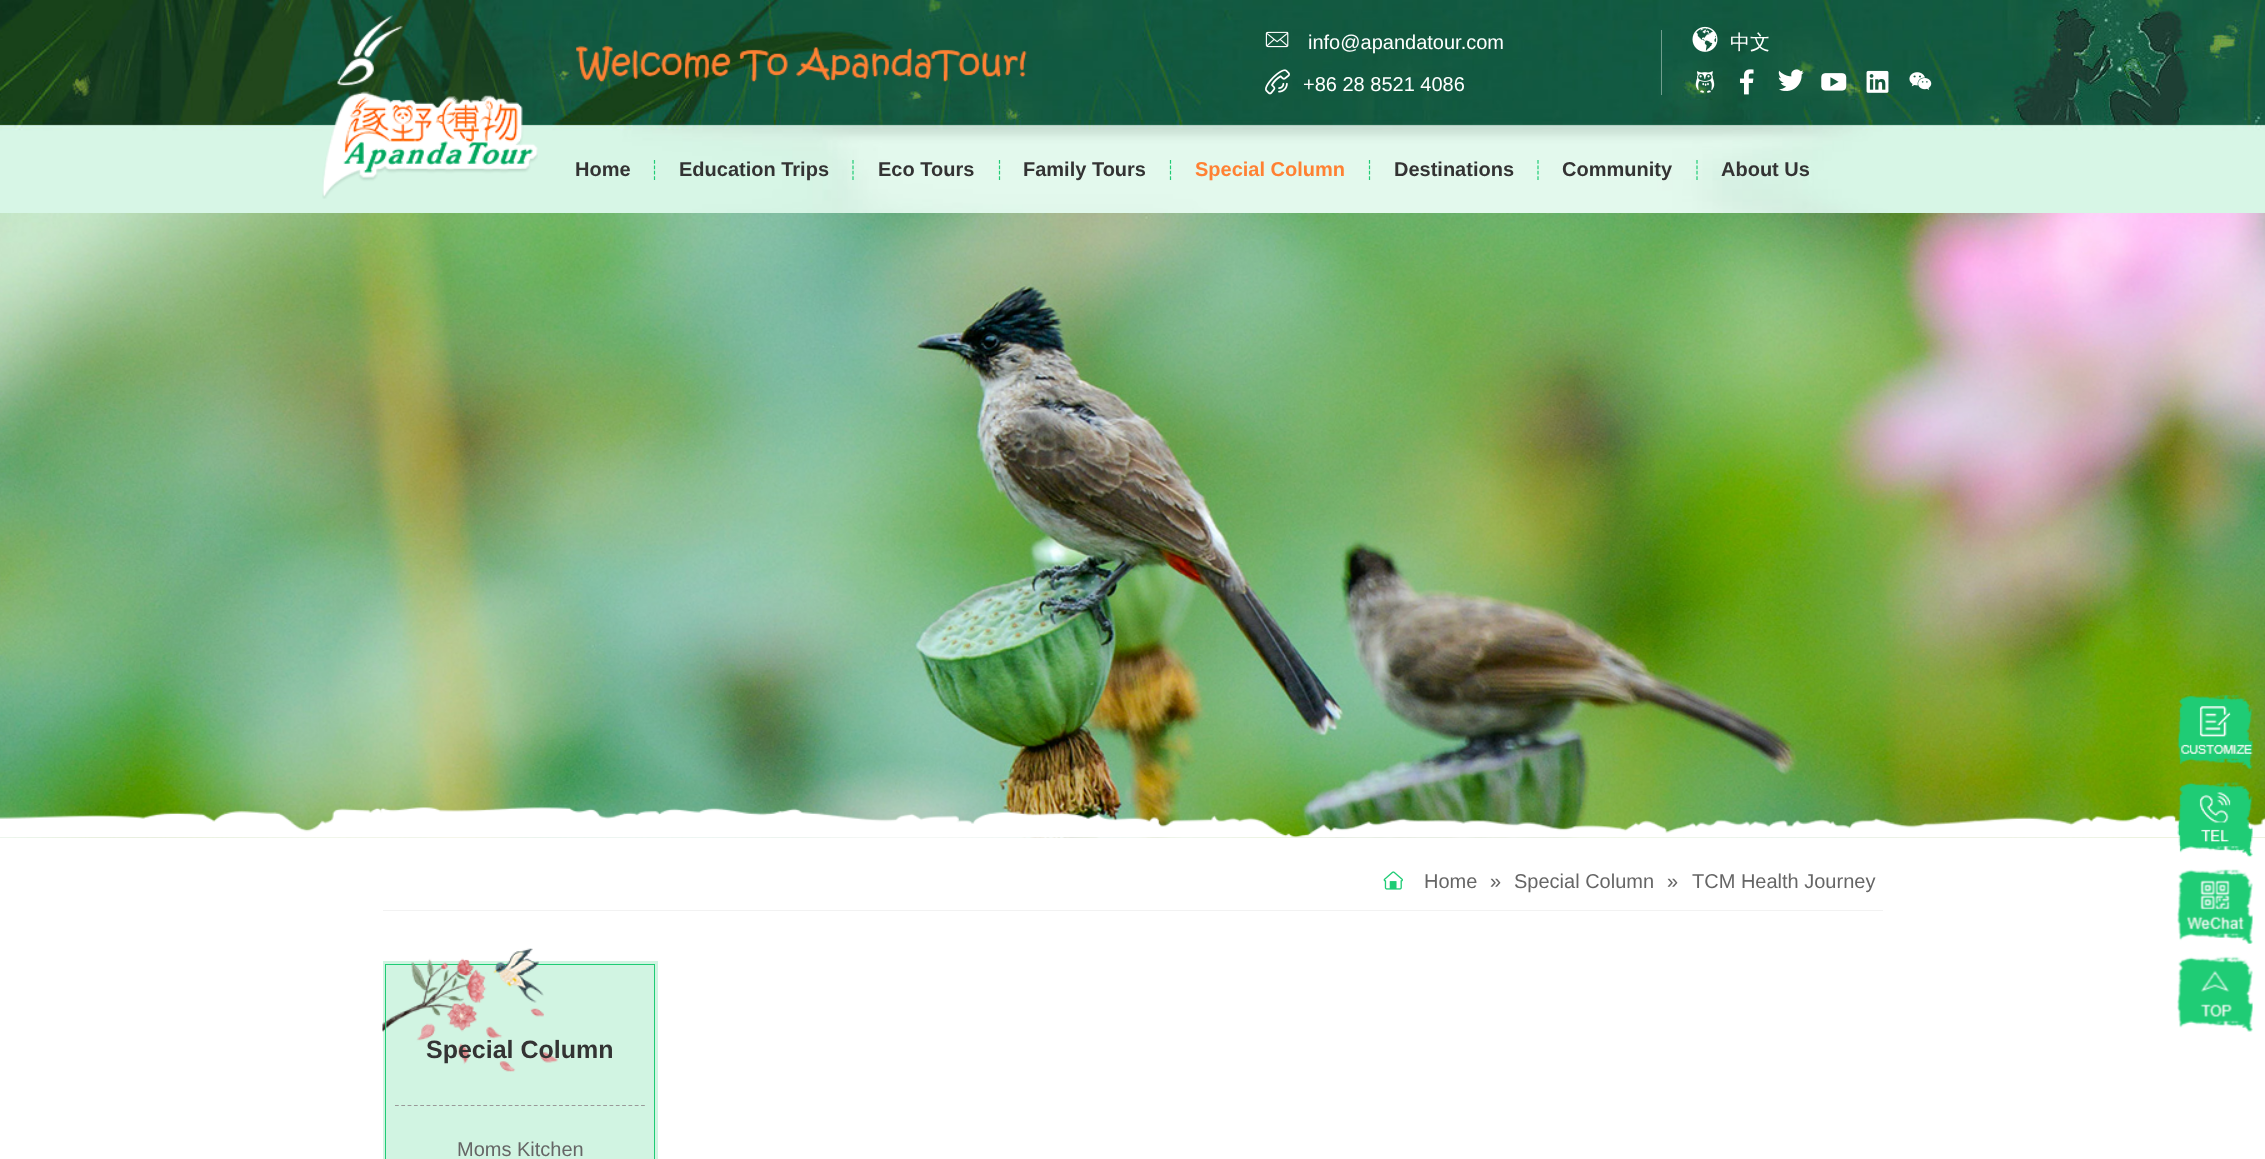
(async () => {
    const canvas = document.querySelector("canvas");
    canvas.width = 2265;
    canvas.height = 1159;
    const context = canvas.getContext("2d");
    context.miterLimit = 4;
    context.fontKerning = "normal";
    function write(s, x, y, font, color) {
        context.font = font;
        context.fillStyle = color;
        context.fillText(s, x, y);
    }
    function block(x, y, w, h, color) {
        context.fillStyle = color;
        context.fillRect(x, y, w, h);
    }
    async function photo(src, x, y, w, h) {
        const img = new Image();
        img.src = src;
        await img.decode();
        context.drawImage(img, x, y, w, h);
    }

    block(0, 0, 2265, 1159, "rgb(255, 255, 255)");
    await photo("media/1.png", 0, 0, 2265, 213);
    await photo("media/2.png", 322, 15, 216, 184);
    await photo("media/3.png", 576, 46, 451, 36);
    await photo("media/4.png", 1265, 31, 24, 17);
    write("info@apandatour.com", 1308, 49, "20px Liberation Sans", "rgb(255, 255, 255)");
    await photo("media/5.png", 1265, 69, 25, 26);
    write("+86 28 8521 4086", 1303, 91, "20px Liberation Sans", "rgb(255, 255, 255)");
    block(1661, 30, 1, 65, "rgb(113, 157, 142)");
    await photo("media/6.png", 1692, 26, 26, 26);
    write("中文", 1730, 49, "500 20px WenQuanYi Zen Hei", "rgb(255, 255, 255)");
    await photo("media/7.png", 1695, 71, 20, 22);
    await photo("media/8.png", 1740, 69, 14, 26);
    await photo("media/9.png", 1778, 69, 26, 22);
    await photo("media/10.png", 1821, 73, 26, 18);
    await photo("media/11.png", 1866, 70, 23, 23);
    await photo("media/12.png", 1909, 72, 23, 18);
    context.beginPath();
    context.moveTo(654.5, 160);
    context.lineTo(654.5, 180);
    context.strokeStyle = "rgb(31, 204, 117)";
    context.lineWidth = 1.2;
    context.setLineDash([3.75, 1.66]);
    context.stroke();
    write("Home", 575, 176, "bold 20px Liberation Sans", "rgb(51, 51, 51)");
    context.beginPath();
    context.moveTo(853, 160);
    context.lineTo(853, 180);
    context.stroke();
    write("Education Trips", 679, 176, "bold 20px Liberation Sans", "rgb(51, 51, 51)");
    context.beginPath();
    context.moveTo(999.5, 160);
    context.lineTo(999.5, 180);
    context.stroke();
    write("Eco Tours", 878, 176, "bold 20px Liberation Sans", "rgb(51, 51, 51)");
    context.beginPath();
    context.moveTo(1170.5, 160);
    context.lineTo(1170.5, 180);
    context.stroke();
    write("Family Tours", 1023, 176, "bold 20px Liberation Sans", "rgb(51, 51, 51)");
    context.beginPath();
    context.moveTo(1369.5, 160);
    context.lineTo(1369.5, 180);
    context.stroke();
    write("Special Column", 1195, 176, "bold 20px Liberation Sans", "rgb(255, 129, 51)");
    context.beginPath();
    context.moveTo(1538, 160);
    context.lineTo(1538, 180);
    context.stroke();
    write("Destinations", 1394, 176, "bold 20px Liberation Sans", "rgb(51, 51, 51)");
    context.beginPath();
    context.moveTo(1697, 160);
    context.lineTo(1697, 180);
    context.stroke();
    write("Community", 1562, 176, "bold 20px Liberation Sans", "rgb(51, 51, 51)");
    write("About Us", 1721, 176, "bold 20px Liberation Sans", "rgb(51, 51, 51)");
    await photo("media/13.png", 0, 213, 2265, 625);
    await photo("media/14.png", 0, 807, 2265, 31);
    block(383, 910, 1500, 1, "rgb(242, 242, 242)");
    await photo("media/15.png", 1383, 871, 20, 19);
    write("Home", 1424, 888, "20px Liberation Sans", "rgb(102, 102, 102)");
    write("»", 1490, 888, "20px Liberation Sans", "rgb(102, 102, 102)");
    write("Special Column", 1514, 888, "20px Liberation Sans", "rgb(102, 102, 102)");
    write("»", 1667, 888, "20px Liberation Sans", "rgb(102, 102, 102)");
    write("TCM Health Journey", 1692, 888, "20px Liberation Sans", "rgb(102, 102, 102)");
    block(383, 961, 275, 198, "rgb(209, 244, 226)");
    block(385, 964, 270, 1, "rgb(31, 204, 117)");
    block(385, 964, 1, 195, "rgb(31, 204, 117)");
    await photo("media/16.png", 382, 948, 176, 124);
    block(654, 964, 1, 195, "rgb(31, 204, 117)");
    context.beginPath();
    context.moveTo(395, 1105.5);
    context.lineTo(645, 1105.5);
    context.strokeStyle = "rgb(153, 153, 153)";
    context.setLineDash([3.75, 2.56]);
    context.stroke();
    write("Special Column", 426, 1058, "bold 25px Liberation Sans", "rgb(51, 51, 51)");
    write("Moms Kitchen", 457, 1156, "20px Liberation Sans", "rgb(102, 102, 102)");
    await photo("media/17.png", 2177, 695, 76, 74);
    await photo("media/18.png", 2177, 782, 76, 75);
    await photo("media/19.png", 2177, 869, 76, 75);
    await photo("media/20.png", 2177, 956, 76, 76);
})();
